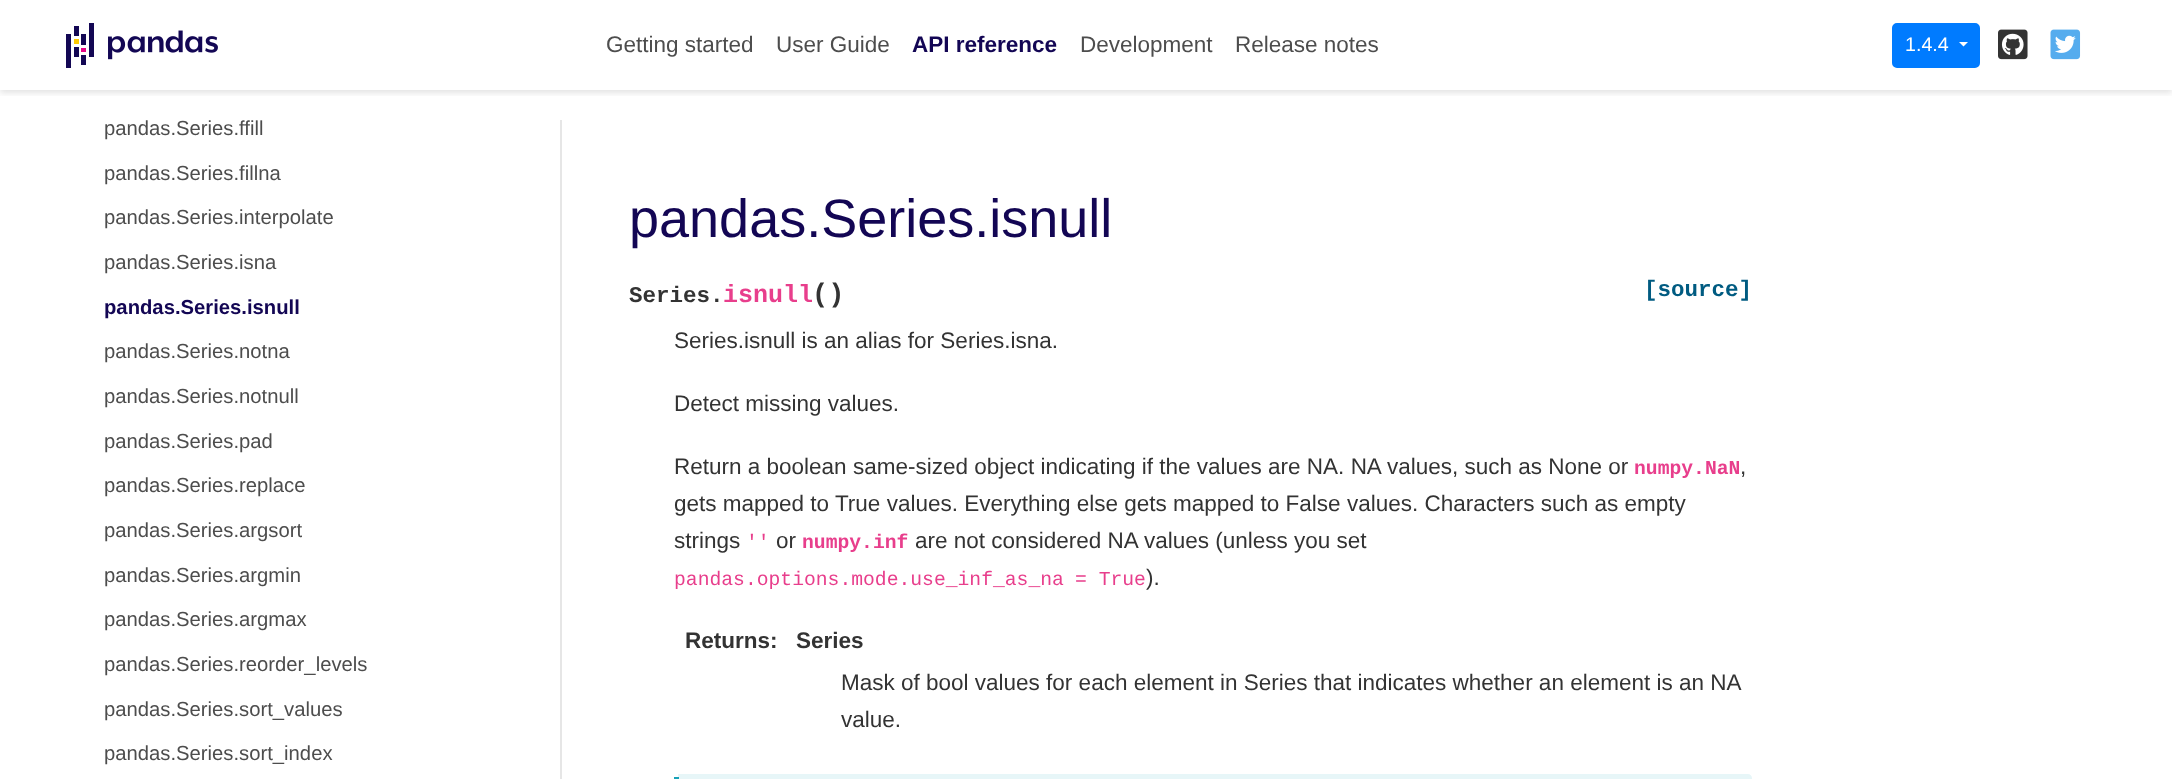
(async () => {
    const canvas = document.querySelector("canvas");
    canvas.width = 2172;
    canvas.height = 779;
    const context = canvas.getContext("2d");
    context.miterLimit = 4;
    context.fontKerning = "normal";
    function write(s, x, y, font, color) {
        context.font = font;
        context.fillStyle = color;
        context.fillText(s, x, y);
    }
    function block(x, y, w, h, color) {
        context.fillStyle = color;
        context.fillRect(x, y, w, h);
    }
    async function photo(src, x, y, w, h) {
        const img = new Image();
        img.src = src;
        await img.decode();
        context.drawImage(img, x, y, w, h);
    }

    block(0, 0, 2172, 779, "rgb(255, 255, 255)");
    context.save();
    context.beginPath();
    context.rect(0, 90, 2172, 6);
    context.clip();
    context.fillStyle = "rgba(0, 0, 0, 0.11)";
    context.filter = "blur(3px)";
    context.beginPath();
    context.rect(0, 3, 2172, 90);
    context.fill();
    context.filter = "none";
    context.restore();
    await photo("media/1.png", 66, 23, 152, 45);
    write("Getting started", 606, 52, "22.5px Liberation Sans", "rgb(77, 77, 77)");
    write("User Guide", 776, 52, "22.5px Liberation Sans", "rgb(77, 77, 77)");
    write("API reference", 912, 52, "bold 22.5px Liberation Sans", "rgb(19, 6, 84)");
    write("Development", 1080, 52, "22.5px Liberation Sans", "rgb(77, 77, 77)");
    write("Release notes", 1235, 52, "22.5px Liberation Sans", "rgb(77, 77, 77)");
    context.fillStyle = "rgb(0, 123, 255)";
    context.beginPath();
    context.roundRect(1893, 24, 86, 43, 4);
    context.fill();
    context.strokeStyle = "rgb(0, 123, 255)";
    context.lineWidth = 2;
    context.stroke();
    write("1.4.4", 1905, 51, "19.7px Liberation Sans", "rgb(255, 255, 255)");
    context.beginPath();
    context.moveTo(1959, 42);
    context.lineTo(1968, 42);
    context.lineTo(1963.5, 46.5);
    context.closePath();
    context.fill();
    await photo("media/2.png", 1998, 29, 30, 31);
    await photo("media/3.png", 2050, 29, 31, 31);
    block(560, 120, 2, 659, "rgb(230, 230, 230)");
    write("pandas.Series.ffill", 104, 135, "20.25px Liberation Sans", "rgb(77, 77, 77)");
    write("pandas.Series.fillna", 104, 180, "20.25px Liberation Sans", "rgb(77, 77, 77)");
    write("pandas.Series.interpolate", 104, 224, "20.25px Liberation Sans", "rgb(77, 77, 77)");
    write("pandas.Series.isna", 104, 269, "20.25px Liberation Sans", "rgb(77, 77, 77)");
    write("pandas.Series.isnull", 104, 314, "bold 20.25px Liberation Sans", "rgb(19, 6, 84)");
    write("pandas.Series.notna", 104, 358, "20.25px Liberation Sans", "rgb(77, 77, 77)");
    write("pandas.Series.notnull", 104, 403, "20.25px Liberation Sans", "rgb(77, 77, 77)");
    write("pandas.Series.pad", 104, 448, "20.25px Liberation Sans", "rgb(77, 77, 77)");
    write("pandas.Series.replace", 104, 492, "20.25px Liberation Sans", "rgb(77, 77, 77)");
    write("pandas.Series.argsort", 104, 537, "20.25px Liberation Sans", "rgb(77, 77, 77)");
    write("pandas.Series.argmin", 104, 582, "20.25px Liberation Sans", "rgb(77, 77, 77)");
    write("pandas.Series.argmax", 104, 626, "20.25px Liberation Sans", "rgb(77, 77, 77)");
    write("pandas.Series.reorder_levels", 104, 671, "20.25px Liberation Sans", "rgb(77, 77, 77)");
    write("pandas.Series.sort_values", 104, 716, "20.25px Liberation Sans", "rgb(77, 77, 77)");
    write("pandas.Series.sort_index", 104, 760, "20.25px Liberation Sans", "rgb(77, 77, 77)");
    write("pandas.Series.isnull", 629, 237, "54px Liberation Sans", "rgb(19, 6, 84)");
    write("Series.", 629, 302, "bold 22.5px Liberation Mono", "rgb(51, 51, 51)");
    write("isnull", 723, 302, "bold 25px Liberation Mono", "rgb(232, 62, 140)");
    write("()", 812, 302, "bold 27px Liberation Mono", "rgb(51, 51, 51)");
    write("[source]", 1644, 296, "bold 22.5px Liberation Mono", "rgb(0, 91, 129)");
    write("Series.isnull is an alias for Series.isna.", 674, 348, "22.5px Liberation Sans", "rgb(51, 51, 51)");
    write("Detect missing values.", 674, 411, "22.5px Liberation Sans", "rgb(51, 51, 51)");
    write("Return a boolean same-sized object indicating if the values are NA. NA values, such as None or", 674, 474, "22.5px Liberation Sans", "rgb(51, 51, 51)");
    write("numpy.NaN", 1634, 474, "bold 19.7px Liberation Mono", "rgb(232, 62, 140)");
    write(",", 1740, 474, "22.5px Liberation Sans", "rgb(51, 51, 51)");
    write("gets mapped to True values. Everything else gets mapped to False values. Characters such as empty", 674, 511, "22.5px Liberation Sans", "rgb(51, 51, 51)");
    write("strings", 674, 548, "22.5px Liberation Sans", "rgb(51, 51, 51)");
    write("''", 746, 548, "19.7px Liberation Mono", "rgb(232, 62, 140)");
    write("or", 776, 548, "22.5px Liberation Sans", "rgb(51, 51, 51)");
    write("numpy.inf", 802, 548, "bold 19.7px Liberation Mono", "rgb(232, 62, 140)");
    write("are not considered NA values (unless you set", 915, 548, "22.5px Liberation Sans", "rgb(51, 51, 51)");
    write("pandas.options.mode.use_inf_as_na", 674, 585, "19.7px Liberation Mono", "rgb(232, 62, 140)");
    write("= True", 1075, 585, "19.7px Liberation Mono", "rgb(232, 62, 140)");
    write(").", 1146, 585, "22.5px Liberation Sans", "rgb(51, 51, 51)");
    write("Returns:", 685, 648, "bold 22.5px Liberation Sans", "rgb(51, 51, 51)");
    write("Series", 796, 648, "bold 22.5px Liberation Sans", "rgb(51, 51, 51)");
    write("Mask of bool values for each element in Series that indicates whether an element is an NA", 841, 690, "22.5px Liberation Sans", "rgb(51, 51, 51)");
    write("value.", 841, 727, "22.5px Liberation Sans", "rgb(51, 51, 51)");
    block(674, 777, 5, 2, "rgb(23, 162, 184)");
    context.fillStyle = "rgba(23, 162, 184, 0.1)";
    context.beginPath();
    context.moveTo(678, 774);
    context.lineTo(678, 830);
    context.lineTo(1752, 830);
    context.lineTo(1752, 778);
    context.bezierCurveTo(1752, 776, 1750, 774, 1748, 774);
    context.closePath();
    context.fill();
})();
